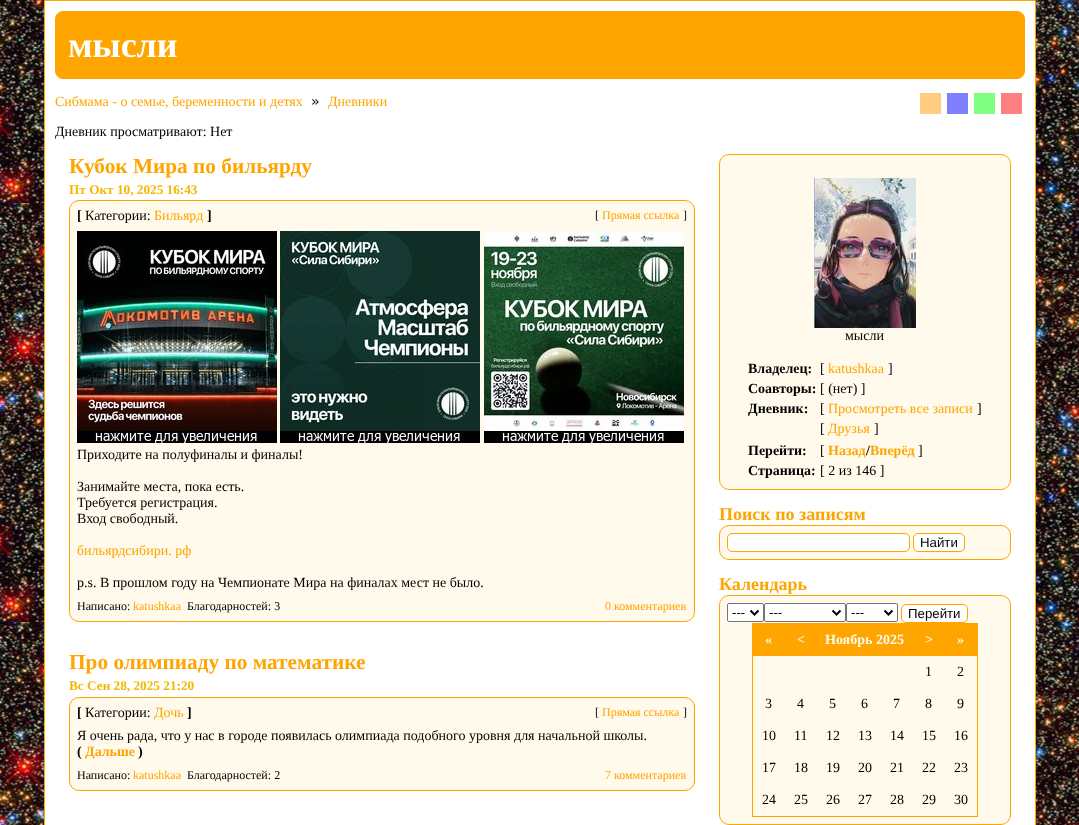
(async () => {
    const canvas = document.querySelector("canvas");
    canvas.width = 1079;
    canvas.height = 825;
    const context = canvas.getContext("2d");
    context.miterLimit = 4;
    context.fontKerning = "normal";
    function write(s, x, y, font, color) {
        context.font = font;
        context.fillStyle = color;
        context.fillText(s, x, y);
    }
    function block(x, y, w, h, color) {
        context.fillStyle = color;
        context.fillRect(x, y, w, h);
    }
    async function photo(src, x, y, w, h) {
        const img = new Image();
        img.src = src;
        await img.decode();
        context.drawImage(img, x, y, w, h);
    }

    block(0, 0, 1079, 825, "rgb(255, 255, 255)");
    await photo("media/1.png", 0, 0, 1079, 825);
    context.beginPath();
    context.rect(44.5, 0.5, 991, 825);
    context.fill();
    context.strokeStyle = "rgb(255, 165, 0)";
    context.stroke();
    context.fillStyle = "rgb(255, 165, 0)";
    context.beginPath();
    context.roundRect(55.5, 11.5, 969, 67, 7.5);
    context.fill();
    context.stroke();
    write("мысли", 68, 57, "bold 36px Liberation Serif", "rgb(255, 255, 255)");
    write("Сибмама - о семье, беременности и детях", 55, 106, "14px Liberation Serif", "rgb(255, 165, 0)");
    write("»", 311, 106, "14px DejaVu Sans Mono", "rgb(0, 0, 0)");
    write("Дневники", 328, 106, "14px Liberation Serif", "rgb(255, 165, 0)");
    block(920, 93, 21, 21, "rgb(255, 204, 128)");
    block(947, 93, 21, 21, "rgb(128, 128, 255)");
    block(974, 93, 21, 21, "rgb(128, 255, 128)");
    block(1001, 93, 21, 21, "rgb(255, 128, 128)");
    write("Дневник просматривают: Нет", 55, 136, "14px Liberation Serif", "rgb(0, 0, 0)");
    write("Кубок Мира по бильярду", 69, 173, "bold 21.3px Liberation Serif", "rgb(255, 165, 0)");
    write("Пт Окт 10, 2025 16:43", 69, 194, "bold 13.25px Liberation Serif", "rgb(245, 184, 0)");
    context.fillStyle = "rgb(255, 250, 235)";
    context.beginPath();
    context.roundRect(69.5, 200.5, 625, 421, 9.5);
    context.fill();
    context.stroke();
    write("[", 77, 220, "bold 14px Liberation Serif", "rgb(0, 0, 0)");
    write("Категории:", 85, 220, "14px Liberation Serif", "rgb(0, 0, 0)");
    write("Бильярд", 154, 220, "14px Liberation Serif", "rgb(255, 165, 0)");
    write("]", 207, 220, "bold 14px Liberation Serif", "rgb(0, 0, 0)");
    write("[", 595, 219, "12px Liberation Serif", "rgb(0, 0, 0)");
    write("Прямая ссылка", 602, 219, "12px Liberation Serif", "rgb(255, 165, 0)");
    write("]", 683, 219, "12px Liberation Serif", "rgb(0, 0, 0)");
    await photo("media/2.png", 77, 231, 200, 212);
    await photo("media/3.png", 280, 231, 200, 212);
    await photo("media/4.png", 484, 231, 200, 212);
    write("Приходите на полуфиналы и финалы!", 77, 459, "14px Liberation Serif", "rgb(0, 0, 0)");
    write("Занимайте места, пока есть.", 77, 491, "14px Liberation Serif", "rgb(0, 0, 0)");
    write("Требуется регистрация.", 77, 507, "14px Liberation Serif", "rgb(0, 0, 0)");
    write("Вход свободный.", 77, 523, "14px Liberation Serif", "rgb(0, 0, 0)");
    write("бильярдсибири. рф", 77, 555, "14px Liberation Serif", "rgb(255, 165, 0)");
    write("p.s. В прошлом году на Чемпионате Мира на финалах мест не было.", 77, 587, "14px Liberation Serif", "rgb(0, 0, 0)");
    write("Написано:", 77, 610, "12px Liberation Serif", "rgb(0, 0, 0)");
    write("katushkaa", 133, 610, "12px Liberation Serif", "rgb(255, 165, 0)");
    write("Благодарностей: 3", 187, 610, "12px Liberation Serif", "rgb(0, 0, 0)");
    write("0 комментариев", 605, 610, "12px Liberation Serif", "rgb(255, 165, 0)");
    write("Про олимпиаду по математике", 69, 669, "bold 21.3px Liberation Serif", "rgb(255, 165, 0)");
    write("Вс Сен 28, 2025 21:20", 69, 690, "bold 13.25px Liberation Serif", "rgb(245, 184, 0)");
    context.fillStyle = "rgb(255, 250, 235)";
    context.beginPath();
    context.roundRect(69.5, 697.5, 625, 93, 9.5);
    context.fill();
    context.stroke();
    write("[", 77, 717, "bold 14px Liberation Serif", "rgb(0, 0, 0)");
    write("Категории:", 85, 717, "14px Liberation Serif", "rgb(0, 0, 0)");
    write("Дочь", 154, 717, "14px Liberation Serif", "rgb(255, 165, 0)");
    write("]", 187, 717, "bold 14px Liberation Serif", "rgb(0, 0, 0)");
    write("[", 595, 716, "12px Liberation Serif", "rgb(0, 0, 0)");
    write("Прямая ссылка", 602, 716, "12px Liberation Serif", "rgb(255, 165, 0)");
    write("]", 683, 716, "12px Liberation Serif", "rgb(0, 0, 0)");
    write("Я очень рада, что у нас в городе появилась олимпиада подобного уровня для начальной школы.", 77, 740, "14px Liberation Serif", "rgb(0, 0, 0)");
    write("(", 77, 756, "bold 14px Liberation Serif", "rgb(0, 0, 0)");
    write("Дальше", 85, 756, "bold 14px Liberation Serif", "rgb(255, 165, 0)");
    write(")", 138, 756, "bold 14px Liberation Serif", "rgb(0, 0, 0)");
    write("Написано:", 77, 779, "12px Liberation Serif", "rgb(0, 0, 0)");
    write("katushkaa", 133, 779, "12px Liberation Serif", "rgb(255, 165, 0)");
    write("Благодарностей: 2", 187, 779, "12px Liberation Serif", "rgb(0, 0, 0)");
    write("7 комментариев", 605, 779, "12px Liberation Serif", "rgb(255, 165, 0)");
    context.fillStyle = "rgb(255, 250, 235)";
    context.beginPath();
    context.roundRect(719.5, 154.5, 291, 335, 9.5);
    context.fill();
    context.stroke();
    await photo("media/5.png", 814, 178, 102, 150);
    write("мысли", 845, 340, "14px Liberation Serif", "rgb(0, 0, 0)");
    write("Владелец:", 748, 373, "bold 14px Liberation Serif", "rgb(0, 0, 0)");
    write("[", 820, 373, "14px Liberation Serif", "rgb(0, 0, 0)");
    write("katushkaa", 828, 373, "14px Liberation Serif", "rgb(255, 165, 0)");
    write("]", 888, 373, "14px Liberation Serif", "rgb(0, 0, 0)");
    write("Соавторы:", 748, 393, "bold 14px Liberation Serif", "rgb(0, 0, 0)");
    write("[ (нет) ]", 820, 393, "14px Liberation Serif", "rgb(0, 0, 0)");
    write("Дневник:", 748, 413, "bold 14px Liberation Serif", "rgb(0, 0, 0)");
    write("[", 820, 413, "14px Liberation Serif", "rgb(0, 0, 0)");
    write("Просмотреть все записи", 828, 413, "14px Liberation Serif", "rgb(255, 165, 0)");
    write("]", 977, 413, "14px Liberation Serif", "rgb(0, 0, 0)");
    write("[", 820, 433, "14px Liberation Serif", "rgb(0, 0, 0)");
    write("Друзья", 828, 433, "14px Liberation Serif", "rgb(255, 165, 0)");
    write("]", 874, 433, "14px Liberation Serif", "rgb(0, 0, 0)");
    write("Перейти:", 748, 455, "bold 14px Liberation Serif", "rgb(0, 0, 0)");
    write("[", 820, 455, "14px Liberation Serif", "rgb(0, 0, 0)");
    write("Назад", 828, 455, "bold 14px Liberation Serif", "rgb(255, 165, 0)");
    write("/", 866, 455, "bold 14px Liberation Serif", "rgb(0, 0, 0)");
    write("Вперёд", 870, 455, "bold 14px Liberation Serif", "rgb(255, 165, 0)");
    write("]", 918, 455, "14px Liberation Serif", "rgb(0, 0, 0)");
    write("Страница:", 748, 475, "bold 14px Liberation Serif", "rgb(0, 0, 0)");
    write("[ 2 из 146 ]", 820, 475, "14px Liberation Serif", "rgb(0, 0, 0)");
    write("Поиск по записям", 719, 520, "bold 18px Liberation Serif", "rgb(255, 165, 0)");
    context.fillStyle = "rgb(255, 250, 235)";
    context.beginPath();
    context.roundRect(719.5, 525.5, 291, 34, 9.5);
    context.fill();
    context.stroke();
    context.fillStyle = "rgb(255, 255, 255)";
    context.beginPath();
    context.roundRect(727.5, 533.5, 182, 18, 4.5);
    context.fill();
    context.stroke();
    context.beginPath();
    context.roundRect(913.5, 533.5, 51, 18, 4.5);
    context.fill();
    context.stroke();
    write("Найти", 920, 547, "13.25px Liberation Sans", "rgb(0, 0, 0)");
    write("Календарь", 719, 590, "bold 18px Liberation Serif", "rgb(255, 165, 0)");
    context.fillStyle = "rgb(255, 250, 235)";
    context.beginPath();
    context.roundRect(719.5, 595.5, 291, 229, 9.5);
    context.fill();
    context.stroke();
    context.fillStyle = "rgb(255, 255, 255)";
    context.beginPath();
    context.roundRect(727.5, 603.5, 36, 18, 1.5);
    context.fill();
    context.strokeStyle = "rgb(118, 118, 118)";
    context.stroke();
    context.beginPath();
    context.moveTo(750.5, 610.5);
    context.lineTo(754.5, 614.5);
    context.lineTo(758.5, 610.5);
    context.strokeStyle = "rgb(0, 0, 0)";
    context.lineWidth = 2;
    context.stroke();
    write("---", 732, 617, "13.25px Liberation Sans", "rgb(0, 0, 0)");
    context.fillStyle = "rgb(255, 255, 255)";
    context.beginPath();
    context.roundRect(764.5, 603.5, 81, 18, 1.5);
    context.fill();
    context.strokeStyle = "rgb(118, 118, 118)";
    context.lineWidth = 1;
    context.stroke();
    context.beginPath();
    context.moveTo(832.5, 610.5);
    context.lineTo(836.5, 614.5);
    context.lineTo(840.5, 610.5);
    context.strokeStyle = "rgb(0, 0, 0)";
    context.lineWidth = 2;
    context.stroke();
    write("---", 769, 617, "13.25px Liberation Sans", "rgb(0, 0, 0)");
    context.fillStyle = "rgb(255, 255, 255)";
    context.beginPath();
    context.roundRect(846.5, 603.5, 51, 18, 1.5);
    context.fill();
    context.strokeStyle = "rgb(118, 118, 118)";
    context.lineWidth = 1;
    context.stroke();
    context.beginPath();
    context.moveTo(884.5, 610.5);
    context.lineTo(888.5, 614.5);
    context.lineTo(892.5, 610.5);
    context.strokeStyle = "rgb(0, 0, 0)";
    context.lineWidth = 2;
    context.stroke();
    write("---", 851, 617, "13.25px Liberation Sans", "rgb(0, 0, 0)");
    context.fillStyle = "rgb(255, 255, 255)";
    context.beginPath();
    context.roundRect(901.5, 604.5, 66, 18, 4.5);
    context.fill();
    context.strokeStyle = "rgb(255, 165, 0)";
    context.lineWidth = 1;
    context.stroke();
    write("Перейти", 908, 618, "13.25px Liberation Sans", "rgb(0, 0, 0)");
    block(752, 623, 226, 1, "rgb(255, 165, 0)");
    block(977, 623, 1, 194, "rgb(255, 165, 0)");
    block(752, 816, 226, 1, "rgb(255, 165, 0)");
    block(752, 623, 1, 194, "rgb(255, 165, 0)");
    block(753, 624, 224, 32, "rgb(255, 165, 0)");
    write("«", 765, 644, "bold 14px Liberation Serif", "rgb(255, 250, 235)");
    write("<", 797, 644, "bold 14px Liberation Serif", "rgb(255, 250, 235)");
    write("Ноябрь 2025", 825, 644, "bold 14px Liberation Serif", "rgb(255, 250, 235)");
    write(">", 925, 644, "bold 14px Liberation Serif", "rgb(255, 250, 235)");
    write("»", 957, 644, "bold 14px Liberation Serif", "rgb(255, 250, 235)");
    write("1", 925, 676, "14px Liberation Serif", "rgb(0, 0, 0)");
    write("2", 957, 676, "14px Liberation Serif", "rgb(0, 0, 0)");
    write("3", 765, 708, "14px Liberation Serif", "rgb(0, 0, 0)");
    write("4", 797, 708, "14px Liberation Serif", "rgb(0, 0, 0)");
    write("5", 829, 708, "14px Liberation Serif", "rgb(0, 0, 0)");
    write("6", 861, 708, "14px Liberation Serif", "rgb(0, 0, 0)");
    write("7", 893, 708, "14px Liberation Serif", "rgb(0, 0, 0)");
    write("8", 925, 708, "14px Liberation Serif", "rgb(0, 0, 0)");
    write("9", 957, 708, "14px Liberation Serif", "rgb(0, 0, 0)");
    write("10", 762, 740, "14px Liberation Serif", "rgb(0, 0, 0)");
    write("11", 794, 740, "14px Liberation Serif", "rgb(0, 0, 0)");
    write("12", 826, 740, "14px Liberation Serif", "rgb(0, 0, 0)");
    write("13", 858, 740, "14px Liberation Serif", "rgb(0, 0, 0)");
    write("14", 890, 740, "14px Liberation Serif", "rgb(0, 0, 0)");
    write("15", 922, 740, "14px Liberation Serif", "rgb(0, 0, 0)");
    write("16", 954, 740, "14px Liberation Serif", "rgb(0, 0, 0)");
    write("17", 762, 772, "14px Liberation Serif", "rgb(0, 0, 0)");
    write("18", 794, 772, "14px Liberation Serif", "rgb(0, 0, 0)");
    write("19", 826, 772, "14px Liberation Serif", "rgb(0, 0, 0)");
    write("20", 858, 772, "14px Liberation Serif", "rgb(0, 0, 0)");
    write("21", 890, 772, "14px Liberation Serif", "rgb(0, 0, 0)");
    write("22", 922, 772, "14px Liberation Serif", "rgb(0, 0, 0)");
    write("23", 954, 772, "14px Liberation Serif", "rgb(0, 0, 0)");
    write("24", 762, 804, "14px Liberation Serif", "rgb(0, 0, 0)");
    write("25", 794, 804, "14px Liberation Serif", "rgb(0, 0, 0)");
    write("26", 826, 804, "14px Liberation Serif", "rgb(0, 0, 0)");
    write("27", 858, 804, "14px Liberation Serif", "rgb(0, 0, 0)");
    write("28", 890, 804, "14px Liberation Serif", "rgb(0, 0, 0)");
    write("29", 922, 804, "14px Liberation Serif", "rgb(0, 0, 0)");
    write("30", 954, 804, "14px Liberation Serif", "rgb(0, 0, 0)");
})();
